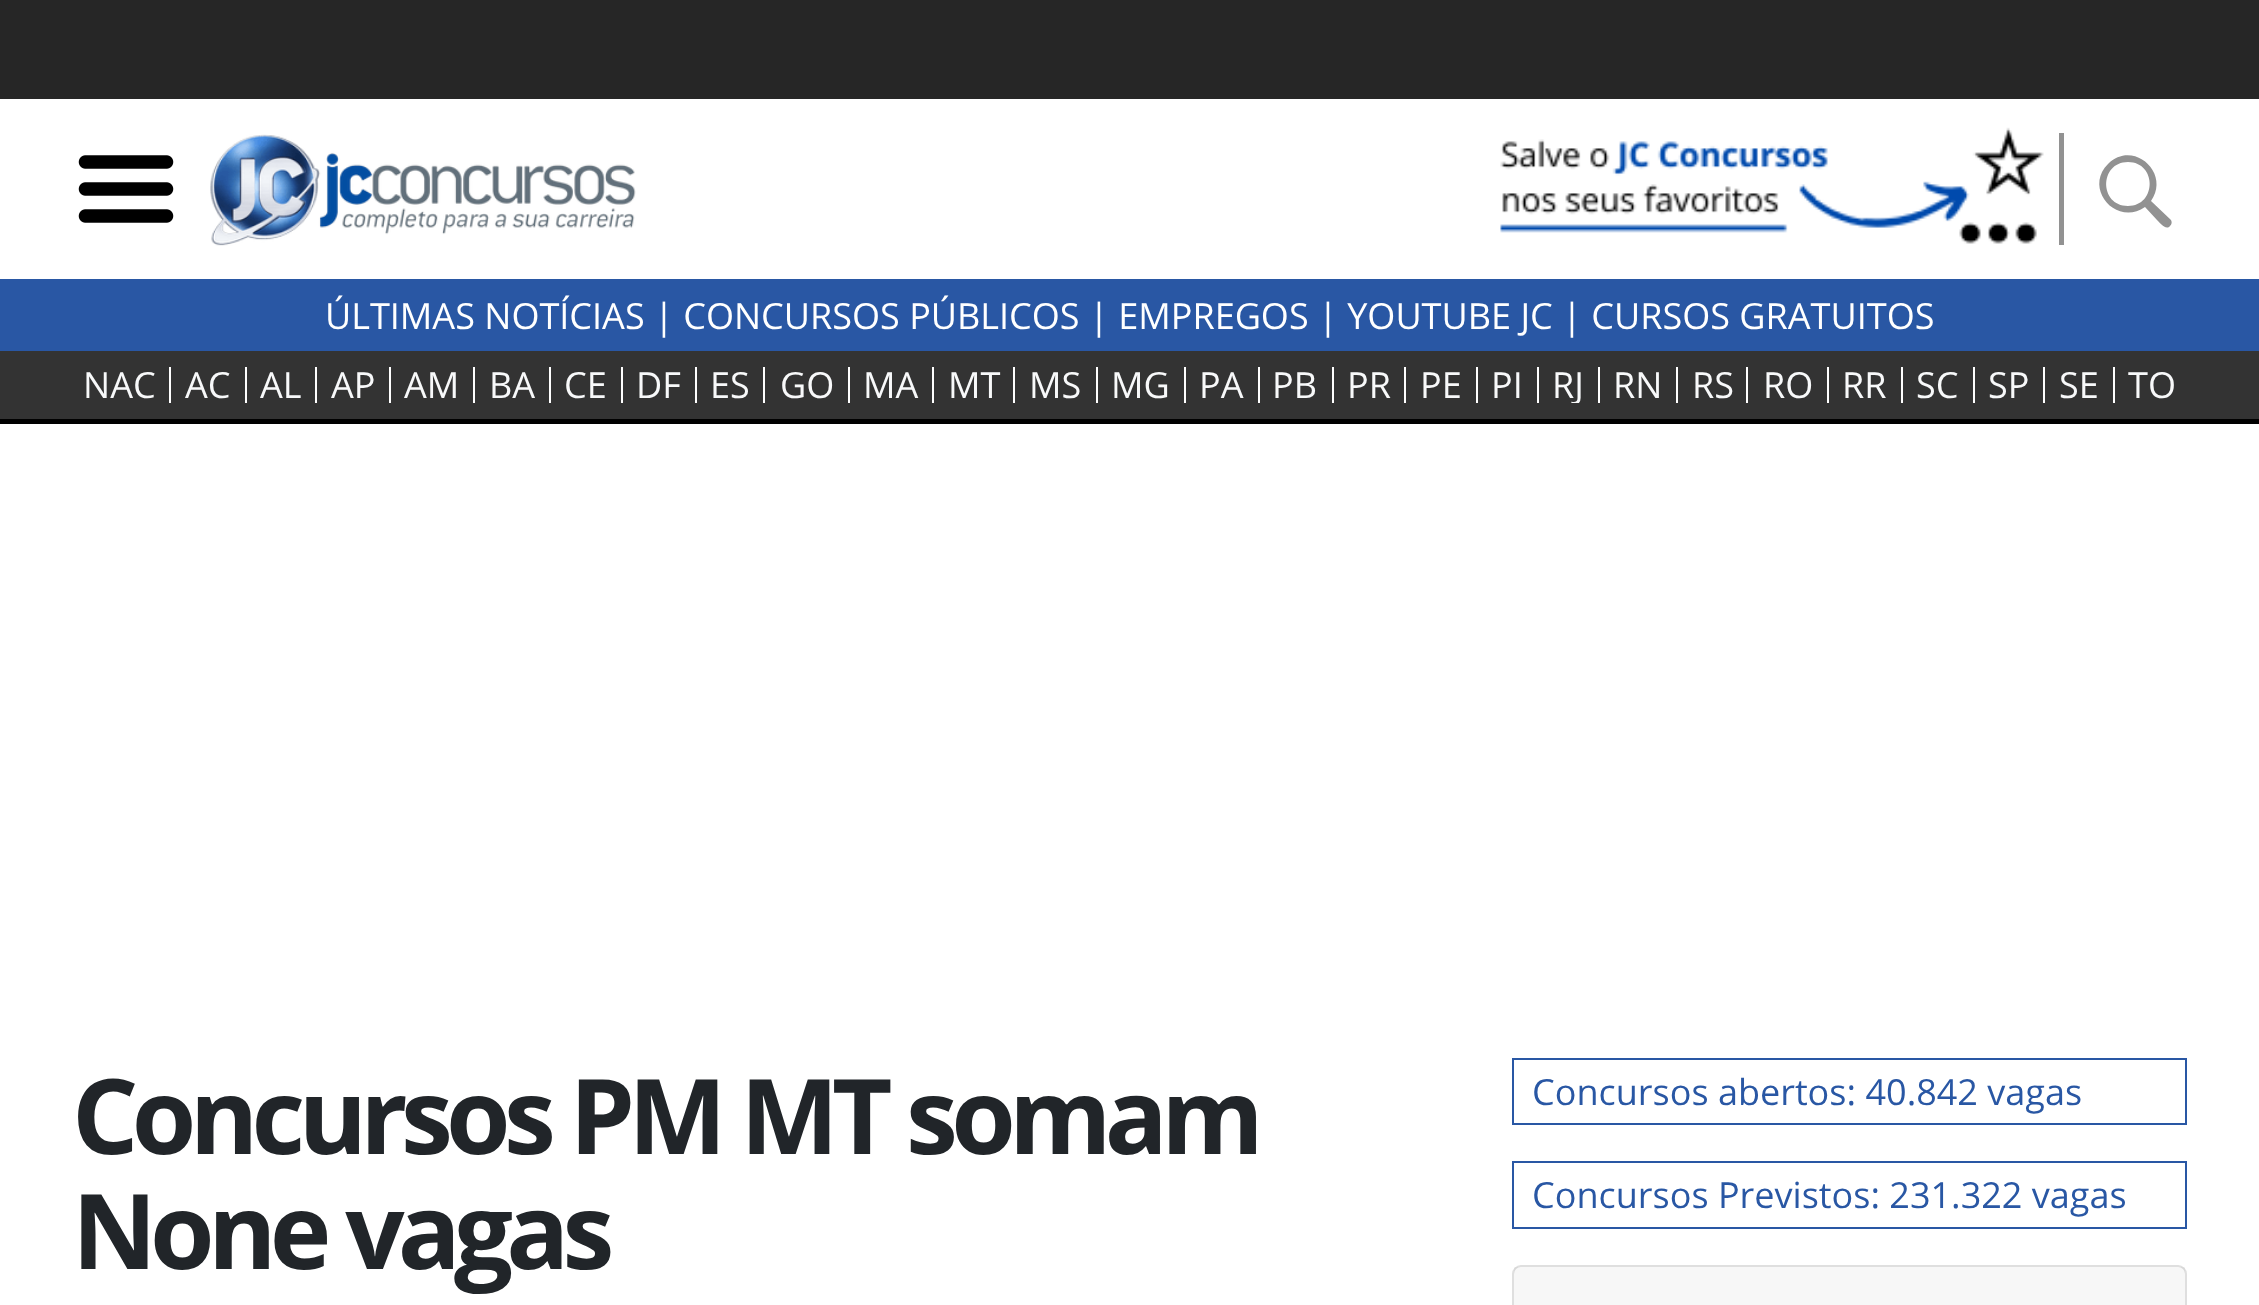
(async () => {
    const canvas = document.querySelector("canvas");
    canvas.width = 2259;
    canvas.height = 1305;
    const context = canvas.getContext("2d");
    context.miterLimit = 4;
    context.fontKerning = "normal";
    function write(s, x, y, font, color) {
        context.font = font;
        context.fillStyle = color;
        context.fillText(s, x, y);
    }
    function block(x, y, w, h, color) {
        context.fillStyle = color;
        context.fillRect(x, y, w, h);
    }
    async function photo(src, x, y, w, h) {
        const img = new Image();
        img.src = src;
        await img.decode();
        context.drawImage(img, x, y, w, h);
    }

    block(0, 0, 2259, 1305, "rgb(255, 255, 255)");
    block(0, 0, 2259, 99, "rgb(38, 38, 38)");
    await photo("media/1.png", 78, 155, 96, 68);
    await photo("media/2.png", 210, 134, 426, 112);
    await photo("media/3.png", 1500, 127, 544, 117);
    block(2059, 133, 5, 112, "rgb(146, 146, 146)");
    context.beginPath();
    context.moveTo(2145, 207);
    context.bezierCurveTo(2117, 227, 2083, 189, 2108, 164);
    context.bezierCurveTo(2133, 139, 2171, 173, 2151, 201);
    context.lineTo(2171, 220);
    context.bezierCurveTo(2172, 222, 2172, 224, 2170, 226);
    context.bezierCurveTo(2166, 231, 2159, 222, 2157, 220);
    context.closePath();
    context.moveTo(2128, 206);
    context.bezierCurveTo(2157, 206, 2157, 162, 2128, 162);
    context.bezierCurveTo(2099, 162, 2099, 206, 2128, 206);
    context.closePath();
    context.fill("evenodd");
    block(0, 279, 2259, 72, "rgb(41, 87, 164)");
    write("ÚLTIMAS NOTÍCIAS | CONCURSOS PÚBLICOS", 325, 329, "36px Open Sans", "rgb(255, 255, 255)");
    write("| EMPREGOS | YOUTUBE JC | CURSOS GRATUITOS", 1089, 329, "36px Open Sans", "rgb(255, 255, 255)");
    block(0, 351, 2259, 68, "rgb(51, 51, 51)");
    block(0, 419, 2259, 5, "rgb(0, 0, 0)");
    block(169, 367, 2, 36, "rgb(255, 255, 255)");
    write("NAC", 83, 398, "36px Open Sans", "rgb(248, 249, 250)");
    block(245, 367, 2, 36, "rgb(255, 255, 255)");
    write("AC", 185, 398, "36px Open Sans", "rgb(248, 249, 250)");
    block(315, 367, 2, 36, "rgb(255, 255, 255)");
    write("AL", 260, 398, "36px Open Sans", "rgb(248, 249, 250)");
    block(389, 367, 2, 36, "rgb(255, 255, 255)");
    write("AP", 331, 398, "36px Open Sans", "rgb(248, 249, 250)");
    block(473, 367, 2, 36, "rgb(255, 255, 255)");
    write("AM", 404, 398, "36px Open Sans", "rgb(248, 249, 250)");
    block(549, 367, 2, 36, "rgb(255, 255, 255)");
    write("BA", 489, 398, "36px Open Sans", "rgb(248, 249, 250)");
    block(621, 367, 2, 36, "rgb(255, 255, 255)");
    write("CE", 564, 398, "36px Open Sans", "rgb(248, 249, 250)");
    block(695, 367, 2, 36, "rgb(255, 255, 255)");
    write("DF", 636, 398, "36px Open Sans", "rgb(248, 249, 250)");
    block(763, 367, 2, 36, "rgb(255, 255, 255)");
    write("ES", 710, 398, "36px Open Sans", "rgb(248, 249, 250)");
    block(848, 367, 2, 36, "rgb(255, 255, 255)");
    write("GO‍", 780, 398, "36px Open Sans", "rgb(248, 249, 250)");
    block(932, 367, 2, 36, "rgb(255, 255, 255)");
    write("MA", 863, 398, "36px Open Sans", "rgb(248, 249, 250)");
    block(1013, 367, 2, 36, "rgb(255, 255, 255)");
    write("MT", 948, 398, "36px Open Sans", "rgb(248, 249, 250)");
    block(1096, 367, 2, 36, "rgb(255, 255, 255)");
    write("MS", 1029, 398, "36px Open Sans", "rgb(248, 249, 250)");
    block(1184, 367, 2, 36, "rgb(255, 255, 255)");
    write("MG", 1111, 398, "36px Open Sans", "rgb(248, 249, 250)");
    block(1258, 367, 2, 36, "rgb(255, 255, 255)");
    write("PA", 1199, 398, "36px Open Sans", "rgb(248, 249, 250)");
    block(1332, 367, 2, 36, "rgb(255, 255, 255)");
    write("PB", 1272, 398, "36px Open Sans", "rgb(248, 249, 250)");
    block(1404, 367, 2, 36, "rgb(255, 255, 255)");
    write("PR", 1347, 398, "36px Open Sans", "rgb(248, 249, 250)");
    block(1476, 367, 2, 36, "rgb(255, 255, 255)");
    write("PE", 1420, 398, "36px Open Sans", "rgb(248, 249, 250)");
    block(1537, 367, 2, 36, "rgb(255, 255, 255)");
    write("PI", 1491, 398, "36px Open Sans", "rgb(248, 249, 250)");
    block(1598, 367, 2, 36, "rgb(255, 255, 255)");
    context.save();
    context.beginPath();
    context.rect(50, 367, 2160, 36);
    context.clip();
    write("RJ", 1552, 398, "36px Open Sans", "rgb(248, 249, 250)");
    context.restore();
    block(1676, 367, 2, 36, "rgb(255, 255, 255)");
    write("RN", 1613, 398, "36px Open Sans", "rgb(248, 249, 250)");
    block(1746, 367, 2, 36, "rgb(255, 255, 255)");
    write("RS", 1692, 398, "36px Open Sans", "rgb(248, 249, 250)");
    block(1827, 367, 2, 36, "rgb(255, 255, 255)");
    write("RO", 1763, 398, "36px Open Sans", "rgb(248, 249, 250)");
    block(1901, 367, 2, 36, "rgb(255, 255, 255)");
    write("RR", 1842, 398, "36px Open Sans", "rgb(248, 249, 250)");
    block(1973, 367, 2, 36, "rgb(255, 255, 255)");
    write("SC", 1916, 398, "36px Open Sans", "rgb(248, 249, 250)");
    block(2043, 367, 2, 36, "rgb(255, 255, 255)");
    write("SP", 1988, 398, "36px Open Sans", "rgb(248, 249, 250)");
    block(2113, 367, 2, 36, "rgb(255, 255, 255)");
    write("SE", 2059, 398, "36px Open Sans", "rgb(248, 249, 250)");
    write("TO", 2128, 398, "36px Open Sans", "rgb(248, 249, 250)");
    context.letterSpacing = "-6.75px";
    write("Concursos PM MT somam", 72, 1154, "bold 104.4px Open Sans", "rgb(33, 37, 41)");
    write("None vagas", 72, 1269, "bold 104.4px Open Sans", "rgb(33, 37, 41)");
    context.strokeStyle = "rgb(41, 87, 164)";
    context.lineWidth = 2;
    context.strokeRect(1513, 1059, 673, 65);
    context.letterSpacing = "0px";
    write("Concursos abertos: 40.842 vagas", 1532, 1105, "36px Open Sans", "rgb(41, 87, 164)");
    context.strokeRect(1513, 1162, 673, 66);
    write("Concursos Previstos: 231.322 vagas", 1532, 1208, "36px Open Sans", "rgb(41, 87, 164)");
    context.beginPath();
    context.roundRect(1513, 1266, 673, 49, 8);
    context.strokeStyle = "rgb(223, 223, 223)";
    context.stroke();
    block(1514, 1267, 671, 38, "rgba(0, 0, 0, 0.03)");
})();
